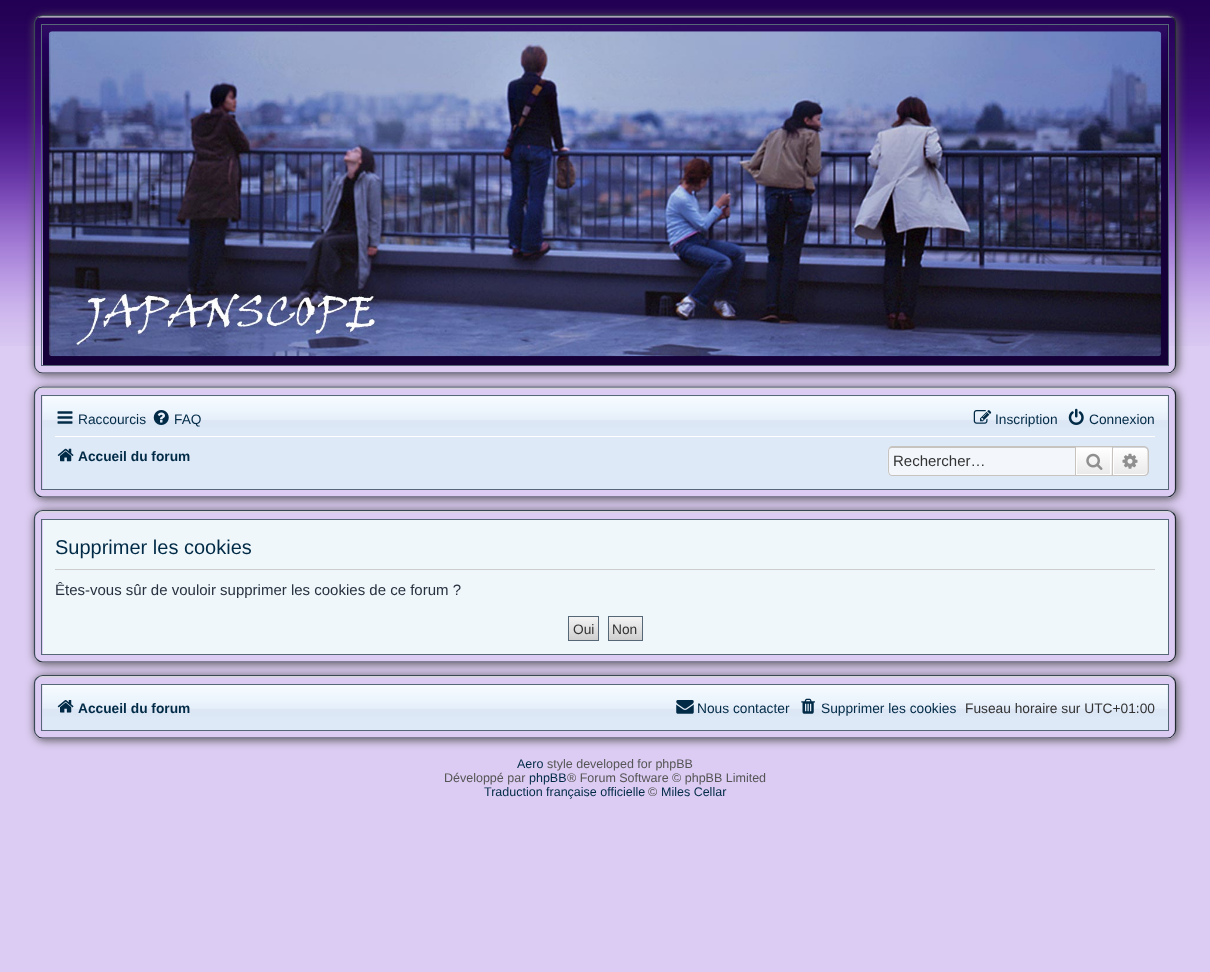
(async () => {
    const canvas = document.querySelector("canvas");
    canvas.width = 1210;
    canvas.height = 972;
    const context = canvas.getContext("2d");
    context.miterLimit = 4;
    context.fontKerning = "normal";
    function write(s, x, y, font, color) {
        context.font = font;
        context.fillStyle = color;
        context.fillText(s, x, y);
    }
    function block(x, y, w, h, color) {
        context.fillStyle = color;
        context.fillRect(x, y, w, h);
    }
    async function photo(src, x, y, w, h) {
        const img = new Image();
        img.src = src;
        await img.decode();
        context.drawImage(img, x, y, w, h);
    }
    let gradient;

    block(0, 0, 1210, 972, "rgb(220, 204, 243)");
    await photo("media/1.png", 0, 0, 1210, 346);
    context.save();
    context.beginPath();
    context.moveTo(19, 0);
    context.lineTo(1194, 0);
    context.lineTo(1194, 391);
    context.lineTo(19, 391);
    context.closePath();
    context.moveTo(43, 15);
    context.lineTo(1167, 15);
    context.bezierCurveTo(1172, 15, 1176, 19, 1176, 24);
    context.lineTo(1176, 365);
    context.bezierCurveTo(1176, 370, 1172, 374, 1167, 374);
    context.lineTo(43, 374);
    context.bezierCurveTo(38, 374, 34, 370, 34, 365);
    context.lineTo(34, 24);
    context.bezierCurveTo(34, 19, 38, 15, 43, 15);
    context.closePath();
    context.clip("evenodd");
    context.fillStyle = "rgb(85, 85, 85)";
    context.filter = "blur(5px)";
    context.beginPath();
    context.roundRect(35, 16, 1143, 359, 9);
    context.fill();
    context.filter = "none";
    context.restore();
    await photo("media/2.png", 35, 16, 1140, 2);
    context.beginPath();
    context.moveTo(37, 18);
    context.bezierCurveTo(38.5, 16.5, 40.5, 15.5, 42.5, 15.5);
    context.lineTo(1167.5, 15.5);
    context.bezierCurveTo(1169.5, 15.5, 1171.5, 16.5, 1173, 18);
    context.strokeStyle = "rgb(57, 72, 84)";
    context.lineWidth = 1.2;
    context.stroke();
    context.beginPath();
    context.moveTo(1173, 18);
    context.bezierCurveTo(1175, 19.5, 1175.5, 21.5, 1175.5, 24);
    context.lineTo(1175.5, 365);
    context.bezierCurveTo(1175.5, 367, 1175, 369, 1173, 370.5);
    context.strokeStyle = "rgb(33, 41, 48)";
    context.stroke();
    context.beginPath();
    context.moveTo(1173, 370.5);
    context.bezierCurveTo(1171.5, 372.5, 1169.5, 373, 1167.5, 373);
    context.lineTo(42.5, 373);
    context.bezierCurveTo(40.5, 373, 38.5, 372.5, 37, 370.5);
    context.strokeStyle = "rgb(38, 48, 56)";
    context.stroke();
    context.beginPath();
    context.moveTo(37, 370.5);
    context.bezierCurveTo(35, 369, 34.5, 367, 34.5, 365);
    context.lineTo(34.5, 24);
    context.bezierCurveTo(34.5, 21.5, 35, 19.5, 37, 18);
    context.strokeStyle = "rgb(58, 73, 85)";
    context.stroke();
    context.strokeStyle = "rgb(86, 104, 119)";
    context.lineWidth = 1;
    context.strokeRect(41.5, 24.5, 1127, 341);
    block(43, 25, 1125, 340, "rgb(21, 0, 55)");
    await photo("media/3.png", 42, 25, 1126, 100);
    await photo("media/4.png", 48, 31, 1114, 326);
    context.save();
    context.beginPath();
    context.moveTo(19, 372);
    context.lineTo(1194, 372);
    context.lineTo(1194, 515);
    context.lineTo(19, 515);
    context.closePath();
    context.moveTo(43, 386);
    context.lineTo(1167, 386);
    context.bezierCurveTo(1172, 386, 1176, 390, 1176, 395);
    context.lineTo(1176, 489);
    context.bezierCurveTo(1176, 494, 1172, 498, 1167, 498);
    context.lineTo(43, 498);
    context.bezierCurveTo(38, 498, 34, 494, 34, 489);
    context.lineTo(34, 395);
    context.bezierCurveTo(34, 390, 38, 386, 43, 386);
    context.closePath();
    context.clip("evenodd");
    context.fillStyle = "rgb(85, 85, 85)";
    context.filter = "blur(5px)";
    context.beginPath();
    context.roundRect(35, 388, 1143, 111, 9);
    context.fill();
    context.filter = "none";
    context.restore();
    await photo("media/5.png", 36, 387, 1138, 2);
    context.beginPath();
    context.moveTo(37, 389.5);
    context.bezierCurveTo(38.5, 387.5, 40.5, 387, 42.5, 387);
    context.lineTo(1167.5, 387);
    context.bezierCurveTo(1169.5, 387, 1171.5, 387.5, 1173, 389.5);
    context.strokeStyle = "rgb(57, 72, 84)";
    context.lineWidth = 1.2;
    context.stroke();
    context.beginPath();
    context.moveTo(1173, 389.5);
    context.bezierCurveTo(1175, 391, 1175.5, 393, 1175.5, 395);
    context.lineTo(1175.5, 489);
    context.bezierCurveTo(1175.5, 491, 1175, 493, 1173, 494.5);
    context.strokeStyle = "rgb(33, 41, 48)";
    context.stroke();
    context.beginPath();
    context.moveTo(1173, 494.5);
    context.bezierCurveTo(1171.5, 496, 1169.5, 497, 1167.5, 497);
    context.lineTo(42.5, 497);
    context.bezierCurveTo(40.5, 497, 38.5, 496, 37, 494.5);
    context.strokeStyle = "rgb(38, 48, 56)";
    context.stroke();
    context.beginPath();
    context.moveTo(37, 494.5);
    context.bezierCurveTo(35, 493, 34.5, 491, 34.5, 489);
    context.lineTo(34.5, 395);
    context.bezierCurveTo(34.5, 393, 35, 391, 37, 389.5);
    context.strokeStyle = "rgb(58, 73, 85)";
    context.stroke();
    context.strokeStyle = "rgb(86, 104, 119)";
    context.lineWidth = 1;
    context.strokeRect(41.5, 395.5, 1127, 94);
    block(43, 396, 1125, 93, "rgb(221, 233, 247)");
    await photo("media/6.png", 42, 396, 1126, 44);
    await photo("media/7.png", 57, 411, 16, 13);
    write("Raccourcis", 78, 424, "13.75px Liberation Sans", "rgb(0, 42, 70)");
    await photo("media/8.png", 153, 410, 16, 15);
    write("FAQ", 174, 424, "13.75px Liberation Sans", "rgb(0, 42, 70)");
    await photo("media/9.png", 973, 410, 19, 14);
    write("Inscription", 995, 424, "13.75px Liberation Sans", "rgb(0, 42, 70)");
    await photo("media/10.png", 1068, 408, 16, 17);
    write("Connexion", 1089, 424, "13.75px Liberation Sans", "rgb(0, 42, 70)");
    block(55, 436, 1100, 1, "rgb(255, 255, 255)");
    await photo("media/11.png", 57, 448, 17, 14);
    write("Accueil du forum", 78, 461, "bold 13.75px Liberation Sans", "rgb(0, 42, 70)");
    await photo("media/12.png", 887, 446, 188, 30);
    context.fillStyle = "rgb(199, 195, 191)";
    context.beginPath();
    context.moveTo(892, 446);
    context.lineTo(1075, 446);
    context.lineTo(1075, 476);
    context.lineTo(892, 476);
    context.bezierCurveTo(890, 476, 888, 474, 888, 471);
    context.lineTo(888, 451);
    context.bezierCurveTo(888, 448, 890, 446, 892, 446);
    context.closePath();
    context.moveTo(892, 448);
    context.lineTo(1075, 448);
    context.lineTo(1075, 475);
    context.lineTo(892, 475);
    context.bezierCurveTo(890, 475, 889, 473, 889, 471);
    context.lineTo(889, 451);
    context.bezierCurveTo(889, 449, 890, 448, 892, 448);
    context.closePath();
    context.fill("evenodd");
    write("Rechercher…", 893, 466, "15px Liberation Sans", "rgb(51, 51, 51)");
    block(1076, 447, 36, 1, "rgb(233, 233, 233)");
    gradient = context.createLinearGradient(1094, 448, 1094, 475);
    gradient.addColorStop(0, "rgb(255, 255, 255)");
    gradient.addColorStop(1, "rgb(233, 233, 233)");
    context.fillStyle = gradient;
    context.fillRect(1077, 448, 35, 27);
    context.strokeStyle = "rgb(255, 255, 255)";
    context.strokeRect(1076.5, 448.5, 34, 26);
    context.strokeStyle = "rgb(199, 195, 191)";
    context.strokeRect(1075.5, 446.5, 37, 29);
    await photo("media/13.png", 1086, 453, 17, 17);
    gradient = context.createLinearGradient(1130, 448, 1130, 475);
    gradient.addColorStop(0, "rgb(255, 255, 255)");
    gradient.addColorStop(1, "rgb(233, 233, 233)");
    context.fillStyle = gradient;
    context.beginPath();
    context.roundRect(1113.5, 448.5, 34, 26, [0, 3.5, 3.5, 0]);
    context.fill();
    context.strokeStyle = "rgb(255, 255, 255)";
    context.stroke();
    context.fillStyle = "rgb(199, 195, 191)";
    context.beginPath();
    context.moveTo(1112.5, 446);
    context.lineTo(1144, 446);
    context.bezierCurveTo(1146.5, 446, 1149, 448.5, 1149, 451);
    context.lineTo(1149, 471);
    context.bezierCurveTo(1149, 474, 1146.5, 476, 1144, 476);
    context.lineTo(1112.5, 476);
    context.closePath();
    context.moveTo(1112.5, 447.5);
    context.lineTo(1144, 447.5);
    context.bezierCurveTo(1146, 447.5, 1147.5, 449, 1147.5, 451);
    context.lineTo(1147.5, 471);
    context.bezierCurveTo(1147.5, 473.5, 1146, 475, 1144, 475);
    context.lineTo(1112.5, 475);
    context.closePath();
    context.fill("evenodd");
    await photo("media/14.png", 1122, 453, 16, 16);
    context.save();
    context.beginPath();
    context.moveTo(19, 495);
    context.lineTo(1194, 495);
    context.lineTo(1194, 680);
    context.lineTo(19, 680);
    context.closePath();
    context.moveTo(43, 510);
    context.lineTo(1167, 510);
    context.bezierCurveTo(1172, 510, 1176, 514, 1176, 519);
    context.lineTo(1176, 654);
    context.bezierCurveTo(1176, 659, 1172, 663, 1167, 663);
    context.lineTo(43, 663);
    context.bezierCurveTo(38, 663, 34, 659, 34, 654);
    context.lineTo(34, 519);
    context.bezierCurveTo(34, 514, 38, 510, 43, 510);
    context.closePath();
    context.clip("evenodd");
    context.fillStyle = "rgb(85, 85, 85)";
    context.filter = "blur(5px)";
    context.beginPath();
    context.roundRect(35, 511, 1143, 153, 9);
    context.fill();
    context.filter = "none";
    context.restore();
    await photo("media/15.png", 36, 511, 1138, 2);
    context.beginPath();
    context.moveTo(37, 513);
    context.bezierCurveTo(38.5, 511.5, 40.5, 510.5, 42.5, 510.5);
    context.lineTo(1167.5, 510.5);
    context.bezierCurveTo(1169.5, 510.5, 1171.5, 511.5, 1173, 513);
    context.strokeStyle = "rgb(57, 72, 84)";
    context.lineWidth = 1.2;
    context.stroke();
    context.beginPath();
    context.moveTo(1173, 513);
    context.bezierCurveTo(1175, 514.5, 1175.5, 516.5, 1175.5, 519);
    context.lineTo(1175.5, 654);
    context.bezierCurveTo(1175.5, 656, 1175, 658, 1173, 659.5);
    context.strokeStyle = "rgb(33, 41, 48)";
    context.stroke();
    context.beginPath();
    context.moveTo(1173, 659.5);
    context.bezierCurveTo(1171.5, 661, 1169.5, 662, 1167.5, 662);
    context.lineTo(42.5, 662);
    context.bezierCurveTo(40.5, 662, 38.5, 661, 37, 659.5);
    context.strokeStyle = "rgb(38, 48, 56)";
    context.stroke();
    context.beginPath();
    context.moveTo(37, 659.5);
    context.bezierCurveTo(35, 658, 34.5, 656, 34.5, 654);
    context.lineTo(34.5, 519);
    context.bezierCurveTo(34.5, 516.5, 35, 514.5, 37, 513);
    context.strokeStyle = "rgb(58, 73, 85)";
    context.stroke();
    context.strokeStyle = "rgb(86, 104, 119)";
    context.lineWidth = 1;
    context.strokeRect(41.5, 519.5, 1127, 135);
    block(43, 520, 1125, 134, "rgb(239, 247, 251)");
    block(55, 569, 1100, 1, "rgb(204, 204, 204)");
    write("Supprimer les cookies", 55, 554, "20px Liberation Sans", "rgb(0, 42, 70)");
    write("Êtes-vous sûr de vouloir supprimer les cookies de ce forum ?", 55, 595, "15px Liberation Sans", "rgb(40, 49, 63)");
    block(569, 617, 29, 1, "rgb(242, 242, 242)");
    gradient = context.createLinearGradient(583, 618, 583, 640);
    gradient.addColorStop(0, "rgb(242, 242, 242)");
    gradient.addColorStop(1, "rgb(207, 207, 207)");
    context.fillStyle = gradient;
    context.fillRect(569, 618, 29, 22);
    context.strokeRect(568.5, 616.5, 30, 24);
    write("Oui", 573, 634, "13.75px Liberation Sans", "rgb(51, 51, 51)");
    block(609, 617, 33, 1, "rgb(242, 242, 242)");
    gradient = context.createLinearGradient(625, 618, 625, 640);
    gradient.addColorStop(0, "rgb(242, 242, 242)");
    gradient.addColorStop(1, "rgb(207, 207, 207)");
    context.fillStyle = gradient;
    context.fillRect(609, 618, 33, 22);
    context.strokeRect(608.5, 616.5, 34, 24);
    write("Non", 612, 634, "13.75px Liberation Sans", "rgb(51, 51, 51)");
    context.save();
    context.beginPath();
    context.moveTo(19, 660);
    context.lineTo(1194, 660);
    context.lineTo(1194, 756);
    context.lineTo(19, 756);
    context.closePath();
    context.moveTo(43, 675);
    context.lineTo(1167, 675);
    context.bezierCurveTo(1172, 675, 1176, 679, 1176, 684);
    context.lineTo(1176, 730);
    context.bezierCurveTo(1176, 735, 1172, 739, 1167, 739);
    context.lineTo(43, 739);
    context.bezierCurveTo(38, 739, 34, 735, 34, 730);
    context.lineTo(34, 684);
    context.bezierCurveTo(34, 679, 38, 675, 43, 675);
    context.closePath();
    context.clip("evenodd");
    context.fillStyle = "rgb(85, 85, 85)";
    context.filter = "blur(5px)";
    context.beginPath();
    context.roundRect(35, 676, 1143, 64, 9);
    context.fill();
    context.filter = "none";
    context.restore();
    await photo("media/15.png", 36, 676, 1138, 2);
    context.beginPath();
    context.moveTo(37, 678);
    context.bezierCurveTo(38.5, 676.5, 40.5, 675.5, 42.5, 675.5);
    context.lineTo(1167.5, 675.5);
    context.bezierCurveTo(1169.5, 675.5, 1171.5, 676.5, 1173, 678);
    context.strokeStyle = "rgb(57, 72, 84)";
    context.lineWidth = 1.2;
    context.stroke();
    context.beginPath();
    context.moveTo(1173, 678);
    context.bezierCurveTo(1175, 679.5, 1175.5, 681.5, 1175.5, 684);
    context.lineTo(1175.5, 730);
    context.bezierCurveTo(1175.5, 732, 1175, 734, 1173, 735.5);
    context.strokeStyle = "rgb(33, 41, 48)";
    context.stroke();
    context.beginPath();
    context.moveTo(1173, 735.5);
    context.bezierCurveTo(1171.5, 737.5, 1169.5, 738, 1167.5, 738);
    context.lineTo(42.5, 738);
    context.bezierCurveTo(40.5, 738, 38.5, 737.5, 37, 735.5);
    context.strokeStyle = "rgb(38, 48, 56)";
    context.stroke();
    context.beginPath();
    context.moveTo(37, 735.5);
    context.bezierCurveTo(35, 734, 34.5, 732, 34.5, 730);
    context.lineTo(34.5, 684);
    context.bezierCurveTo(34.5, 681.5, 35, 679.5, 37, 678);
    context.strokeStyle = "rgb(58, 73, 85)";
    context.stroke();
    context.strokeStyle = "rgb(86, 104, 119)";
    context.lineWidth = 1;
    context.strokeRect(41.5, 684.5, 1127, 46);
    block(43, 685, 1125, 45, "rgb(221, 233, 247)");
    await photo("media/16.png", 42, 685, 1126, 44);
    await photo("media/17.png", 57, 700, 17, 13);
    write("Accueil du forum", 78, 713, "bold 13.75px Liberation Sans", "rgb(0, 42, 70)");
    await photo("media/18.png", 676, 700, 18, 14);
    write("Nous contacter", 697, 713, "13.75px Liberation Sans", "rgb(0, 42, 70)");
    await photo("media/19.png", 801, 698, 14, 16);
    write("Supprimer les cookies", 821, 713, "13.75px Liberation Sans", "rgb(0, 42, 70)");
    write("Fuseau horaire sur UTC+01:00", 965, 713, "13.75px Liberation Sans", "rgb(51, 51, 51)");
    write("Aero", 517, 768, "12.5px Liberation Sans", "rgb(0, 42, 70)");
    write("style developed for phpBB", 547, 768, "12.5px Liberation Sans", "rgb(85, 85, 85)");
    write("Développé par", 444, 782, "12.5px Liberation Sans", "rgb(85, 85, 85)");
    write("phpBB", 529, 782, "12.5px Liberation Sans", "rgb(0, 42, 70)");
    write("® Forum Software © phpBB Limited", 567, 782, "12.5px Liberation Sans", "rgb(85, 85, 85)");
    write("Traduction française officielle", 484, 796, "12.5px Liberation Sans", "rgb(0, 42, 70)");
    write("©", 648, 796, "12.5px Liberation Sans", "rgb(85, 85, 85)");
    write("Miles Cellar", 661, 796, "12.5px Liberation Sans", "rgb(0, 42, 70)");
})();
